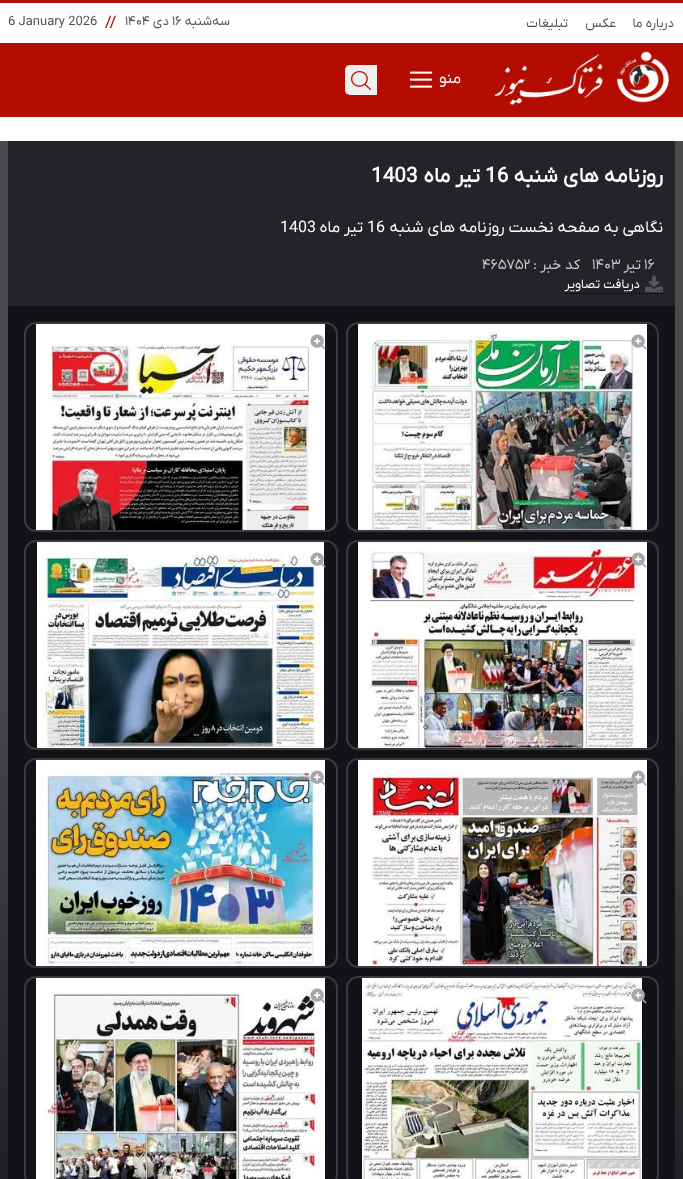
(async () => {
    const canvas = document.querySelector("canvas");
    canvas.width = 683;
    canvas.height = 1179;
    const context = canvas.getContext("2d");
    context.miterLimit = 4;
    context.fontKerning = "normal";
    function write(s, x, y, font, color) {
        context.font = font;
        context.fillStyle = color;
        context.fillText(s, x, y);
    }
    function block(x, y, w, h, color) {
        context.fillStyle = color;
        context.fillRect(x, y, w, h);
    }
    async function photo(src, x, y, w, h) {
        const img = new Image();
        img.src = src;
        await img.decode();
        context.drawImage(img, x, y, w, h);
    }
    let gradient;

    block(0, 0, 683, 1179, "rgb(255, 255, 255)");
    block(0, 0, 683, 3, "rgb(180, 12, 0)");
    context.direction = "rtl";
    write("درباره ما", 674, 27, "13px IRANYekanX", "rgb(83, 83, 83)");
    write("عکس", 616, 27, "13px IRANYekanX", "rgb(83, 83, 83)");
    write("تبلیغات", 568, 27, "13px IRANYekanX", "rgb(83, 83, 83)");
    write("سه‌شنبه", 230, 25, "13px IRANYekanX", "rgb(83, 83, 83)");
    context.direction = "ltr";
    write("۱۶", 172, 25, "13px IRANYekanX", "rgb(83, 83, 83)");
    context.direction = "rtl";
    write("دی", 169, 25, "13px IRANYekanX", "rgb(83, 83, 83)");
    context.direction = "ltr";
    write("۱۴۰۴", 125, 25, "13px IRANYekanX", "rgb(83, 83, 83)");
    write("//", 105, 27, "16px IRANYekanX", "rgb(180, 12, 0)");
    write("6 January 2026", 8, 25, "13px IRANYekanX", "rgb(83, 83, 83)");
    block(0, 43, 683, 74, "rgb(180, 12, 0)");
    await photo("media/1.png", 494, 51, 176, 54);
    context.direction = "rtl";
    write("منو", 461, 83, "16px IRANYekanX", "rgb(255, 255, 255)");
    await photo("media/2.png", 409, 71, 24, 17);
    context.fillStyle = "rgb(239, 239, 239)";
    context.beginPath();
    context.roundRect(345, 65, 32, 30, [5, 0, 0, 5]);
    context.fill();
    await photo("media/3.png", 351, 71, 20, 19);
    gradient = context.createLinearGradient(341, 141, 342, 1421);
    gradient.addColorStop(0.4, "rgb(74, 74, 74)");
    gradient.addColorStop(1, "rgb(12, 13, 15)");
    context.fillStyle = gradient;
    context.fillRect(0, 141, 683, 1038);
    block(8, 141, 667, 165, "rgb(36, 35, 42)");
    write("روزنامه های شنبه", 663, 182, "bold 20.75px IRANYekanX", "rgb(255, 255, 255)");
    context.direction = "ltr";
    write("16", 485, 182, "bold 20.75px IRANYekanX", "rgb(255, 255, 255)");
    context.direction = "rtl";
    write("تیر ماه", 480, 182, "bold 20.75px IRANYekanX", "rgb(255, 255, 255)");
    context.direction = "ltr";
    write("1403", 371, 182, "bold 20.75px IRANYekanX", "rgb(255, 255, 255)");
    context.direction = "rtl";
    write("نگاهی به صفحه نخست روزنامه های شنبه", 663, 232, "16px IRANYekanX", "rgb(255, 255, 255)");
    context.direction = "ltr";
    write("16", 367, 232, "16px IRANYekanX", "rgb(255, 255, 255)");
    context.direction = "rtl";
    write("تیر ماه", 363, 232, "16px IRANYekanX", "rgb(255, 255, 255)");
    context.direction = "ltr";
    write("1403", 280, 232, "16px IRANYekanX", "rgb(255, 255, 255)");
    write("۱۶", 644, 269, "14.5px IRANYekanX", "rgb(204, 204, 204)");
    context.direction = "rtl";
    write("تیر", 641, 269, "14.5px IRANYekanX", "rgb(204, 204, 204)");
    context.direction = "ltr";
    write("۱۴۰۳", 592, 269, "14.5px IRANYekanX", "rgb(204, 204, 204)");
    context.direction = "rtl";
    write("کد خبر :", 580, 269, "14.5px IRANYekanX", "rgb(204, 204, 204)");
    context.direction = "ltr";
    write("۴۶۵۷۵۲", 482, 269, "14.5px IRANYekanX", "rgb(204, 204, 204)");
    context.beginPath();
    context.moveTo(565, 293.5);
    context.lineTo(663, 293.5);
    context.strokeStyle = "rgb(0, 0, 0)";
    context.setLineDash([1, 1]);
    context.stroke();
    await photo("media/4.png", 645, 275, 18, 18);
    context.direction = "rtl";
    write("دریافت تصاویر", 640, 288, "12.75px IRANYekanX", "rgb(255, 255, 255)");
    block(8, 306, 667, 873, "rgb(19, 18, 24)");
    context.beginPath();
    context.roundRect(347, 323, 311, 208, 11);
    context.strokeStyle = "rgb(58, 58, 58)";
    context.lineWidth = 2;
    context.setLineDash([]);
    context.stroke();
    await photo("media/5.png", 358, 324, 289, 206);
    await photo("media/6.png", 631, 334, 16, 16);
    context.beginPath();
    context.roundRect(25, 323, 312, 208, 11);
    context.stroke();
    await photo("media/7.png", 36, 324, 289, 206);
    await photo("media/8.png", 310, 334, 16, 16);
    context.beginPath();
    context.roundRect(347, 541, 311, 208, 11);
    context.stroke();
    await photo("media/9.png", 358, 542, 289, 206);
    await photo("media/10.png", 631, 552, 16, 16);
    context.beginPath();
    context.roundRect(25, 541, 312, 208, 11);
    context.stroke();
    await photo("media/11.png", 37, 542, 287, 206);
    await photo("media/12.png", 310, 552, 16, 16);
    context.beginPath();
    context.roundRect(347, 759, 311, 208, 11);
    context.stroke();
    await photo("media/13.png", 358, 760, 289, 206);
    await photo("media/14.png", 631, 770, 16, 16);
    context.beginPath();
    context.roundRect(25, 759, 312, 208, 11);
    context.stroke();
    await photo("media/15.png", 36, 760, 289, 206);
    await photo("media/16.png", 310, 770, 16, 16);
    context.beginPath();
    context.roundRect(347, 977, 311, 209, 11);
    context.stroke();
    await photo("media/17.png", 362, 978, 280, 201);
    await photo("media/18.png", 631, 988, 16, 16);
    context.beginPath();
    context.roundRect(25, 977, 312, 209, 11);
    context.stroke();
    await photo("media/19.png", 36, 978, 289, 201);
    await photo("media/20.png", 310, 988, 16, 16);
})();
